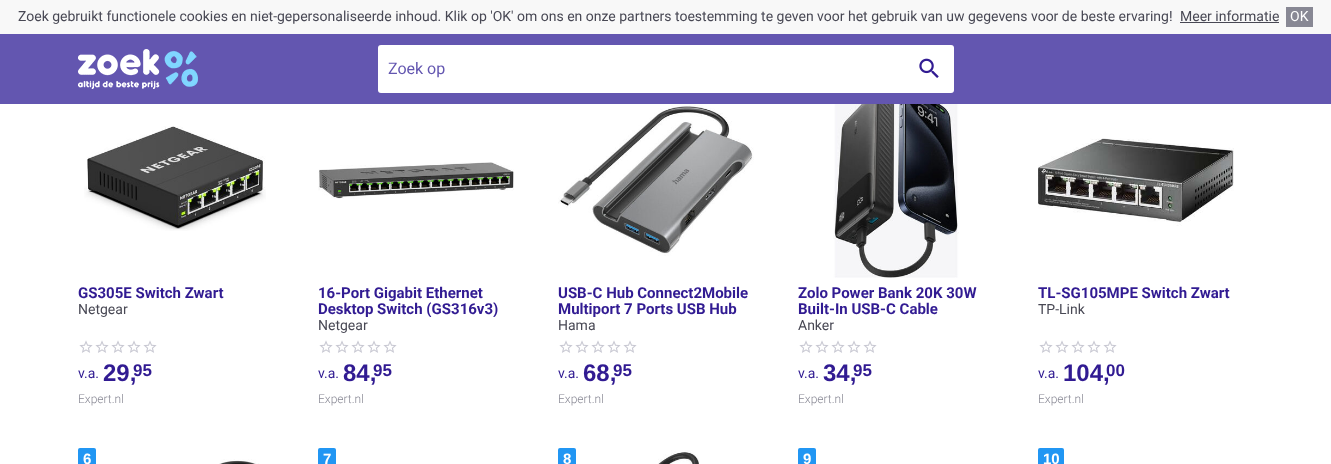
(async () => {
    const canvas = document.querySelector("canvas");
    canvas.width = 1331;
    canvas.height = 464;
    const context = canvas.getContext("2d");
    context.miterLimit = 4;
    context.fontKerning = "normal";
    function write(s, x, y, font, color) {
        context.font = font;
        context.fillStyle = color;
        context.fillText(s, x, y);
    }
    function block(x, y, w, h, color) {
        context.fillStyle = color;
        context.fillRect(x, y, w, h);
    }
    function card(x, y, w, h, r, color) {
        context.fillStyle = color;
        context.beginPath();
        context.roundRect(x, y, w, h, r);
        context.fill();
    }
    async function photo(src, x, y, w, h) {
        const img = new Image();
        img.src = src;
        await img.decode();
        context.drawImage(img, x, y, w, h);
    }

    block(0, 0, 1331, 464, "rgb(255, 255, 255)");
    block(0, 34, 1331, 70, "rgb(99, 86, 176)");
    block(0, 0, 1331, 34, "rgb(248, 248, 248)");
    write("Zoek gebruikt functionele cookies en niet-gepersonaliseerde inhoud. Klik op 'OK' om ons en onze partners toestemming te geven voor het gebruik van uw gegevens voor de beste ervaring!", 18, 21, "14px Roboto", "rgb(72, 72, 84)");
    write("Meer informatie", 1180, 21, "14px Roboto", "rgb(72, 72, 84)");
    block(1180, 22, 99, 1, "rgb(72, 72, 84)");
    block(1286, 7, 27, 20, "rgb(136, 136, 148)");
    write("OK", 1290, 21, "14px Roboto", "rgb(255, 255, 255)");
    await photo("media/1.png", 78, 49, 120, 40);
    card(378, 45, 576, 48, 3, "rgb(255, 255, 255)");
    write("Zoek op", 388, 74, "16px Roboto", "rgb(99, 86, 176)");
    await photo("media/2.png", 919, 58, 20, 20);
    await photo("media/3.png", 84, 126, 182, 105);
    write("GS305E Switch Zwart", 78, 298, "bold 15px Roboto", "rgb(49, 27, 146)");
    write("Netgear", 78, 314, "14px Roboto", "rgb(72, 72, 84)");
    await photo("media/4.png", 79, 340, 78, 13);
    write("v.a.", 78, 378, "14px Roboto", "rgb(49, 27, 146)");
    write("29,", 103, 381, "bold 24px Liberation Sans", "rgb(49, 27, 146)");
    write("95", 133, 376, "bold 17px Liberation Sans", "rgb(49, 27, 146)");
    write("Expert.nl", 78, 403, "300 12px Roboto", "rgb(136, 136, 148)");
    await photo("media/5.png", 318, 162, 196, 37);
    write("16-Port Gigabit Ethernet", 318, 298, "bold 15px Roboto", "rgb(49, 27, 146)");
    context.save();
    context.beginPath();
    context.rect(318, 285, 196, 32);
    context.clip();
    write("Desktop Switch (GS316v3)", 318, 314, "bold 15px Roboto", "rgb(49, 27, 146)");
    context.restore();
    write("Netgear", 318, 330, "14px Roboto", "rgb(72, 72, 84)");
    await photo("media/4.png", 319, 340, 78, 13);
    write("v.a.", 318, 378, "14px Roboto", "rgb(49, 27, 146)");
    write("84,", 343, 381, "bold 24px Liberation Sans", "rgb(49, 27, 146)");
    write("95", 373, 376, "bold 17px Liberation Sans", "rgb(49, 27, 146)");
    write("Expert.nl", 318, 403, "300 12px Roboto", "rgb(136, 136, 148)");
    await photo("media/6.png", 558, 105, 196, 151);
    write("USB-C Hub Connect2Mobile", 558, 298, "bold 15px Roboto", "rgb(49, 27, 146)");
    write("Multiport 7 Ports USB Hub", 558, 314, "bold 15px Roboto", "rgb(49, 27, 146)");
    write("Hama", 558, 330, "14px Roboto", "rgb(72, 72, 84)");
    await photo("media/4.png", 559, 340, 78, 13);
    write("v.a.", 558, 378, "14px Roboto", "rgb(49, 27, 146)");
    write("68,", 583, 381, "bold 24px Liberation Sans", "rgb(49, 27, 146)");
    write("95", 613, 376, "bold 17px Liberation Sans", "rgb(49, 27, 146)");
    write("Expert.nl", 558, 403, "300 12px Roboto", "rgb(136, 136, 148)");
    await photo("media/7.png", 833, 104, 126, 174);
    write("Zolo Power Bank 20K 30W", 798, 298, "bold 15px Roboto", "rgb(49, 27, 146)");
    write("Built-In USB-C Cable", 798, 314, "bold 15px Roboto", "rgb(49, 27, 146)");
    write("Anker", 798, 330, "14px Roboto", "rgb(72, 72, 84)");
    await photo("media/4.png", 799, 340, 78, 13);
    write("v.a.", 798, 378, "14px Roboto", "rgb(49, 27, 146)");
    write("34,", 823, 381, "bold 24px Liberation Sans", "rgb(49, 27, 146)");
    write("95", 853, 376, "bold 17px Liberation Sans", "rgb(49, 27, 146)");
    write("Expert.nl", 798, 403, "300 12px Roboto", "rgb(136, 136, 148)");
    await photo("media/8.png", 1038, 138, 196, 88);
    write("TL-SG105MPE Switch Zwart", 1038, 298, "bold 15px Roboto", "rgb(49, 27, 146)");
    write("TP-Link", 1038, 314, "14px Roboto", "rgb(72, 72, 84)");
    await photo("media/4.png", 1039, 340, 78, 13);
    write("v.a.", 1038, 378, "14px Roboto", "rgb(49, 27, 146)");
    write("104,", 1063, 381, "bold 24px Liberation Sans", "rgb(49, 27, 146)");
    write("00", 1106, 376, "bold 17px Liberation Sans", "rgb(49, 27, 146)");
    write("Expert.nl", 1038, 403, "300 12px Roboto", "rgb(136, 136, 148)");
    card(78, 448, 18, 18, 2, "rgb(33, 150, 243)");
    write("6", 83, 464, "bold 15px Liberation Sans", "rgb(255, 255, 255)");
    await photo("media/9.png", 219, 459, 40, 5);
    card(318, 448, 18, 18, 2, "rgb(33, 150, 243)");
    write("7", 323, 464, "bold 15px Liberation Sans", "rgb(255, 255, 255)");
    card(558, 448, 18, 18, 2, "rgb(33, 150, 243)");
    write("8", 563, 464, "bold 15px Liberation Sans", "rgb(255, 255, 255)");
    await photo("media/10.png", 658, 450, 41, 14);
    card(798, 448, 18, 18, 2, "rgb(33, 150, 243)");
    write("9", 803, 464, "bold 15px Liberation Sans", "rgb(255, 255, 255)");
    card(1038, 448, 26, 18, 2, "rgb(33, 150, 243)");
    write("10", 1043, 464, "bold 15px Liberation Sans", "rgb(255, 255, 255)");
})();
